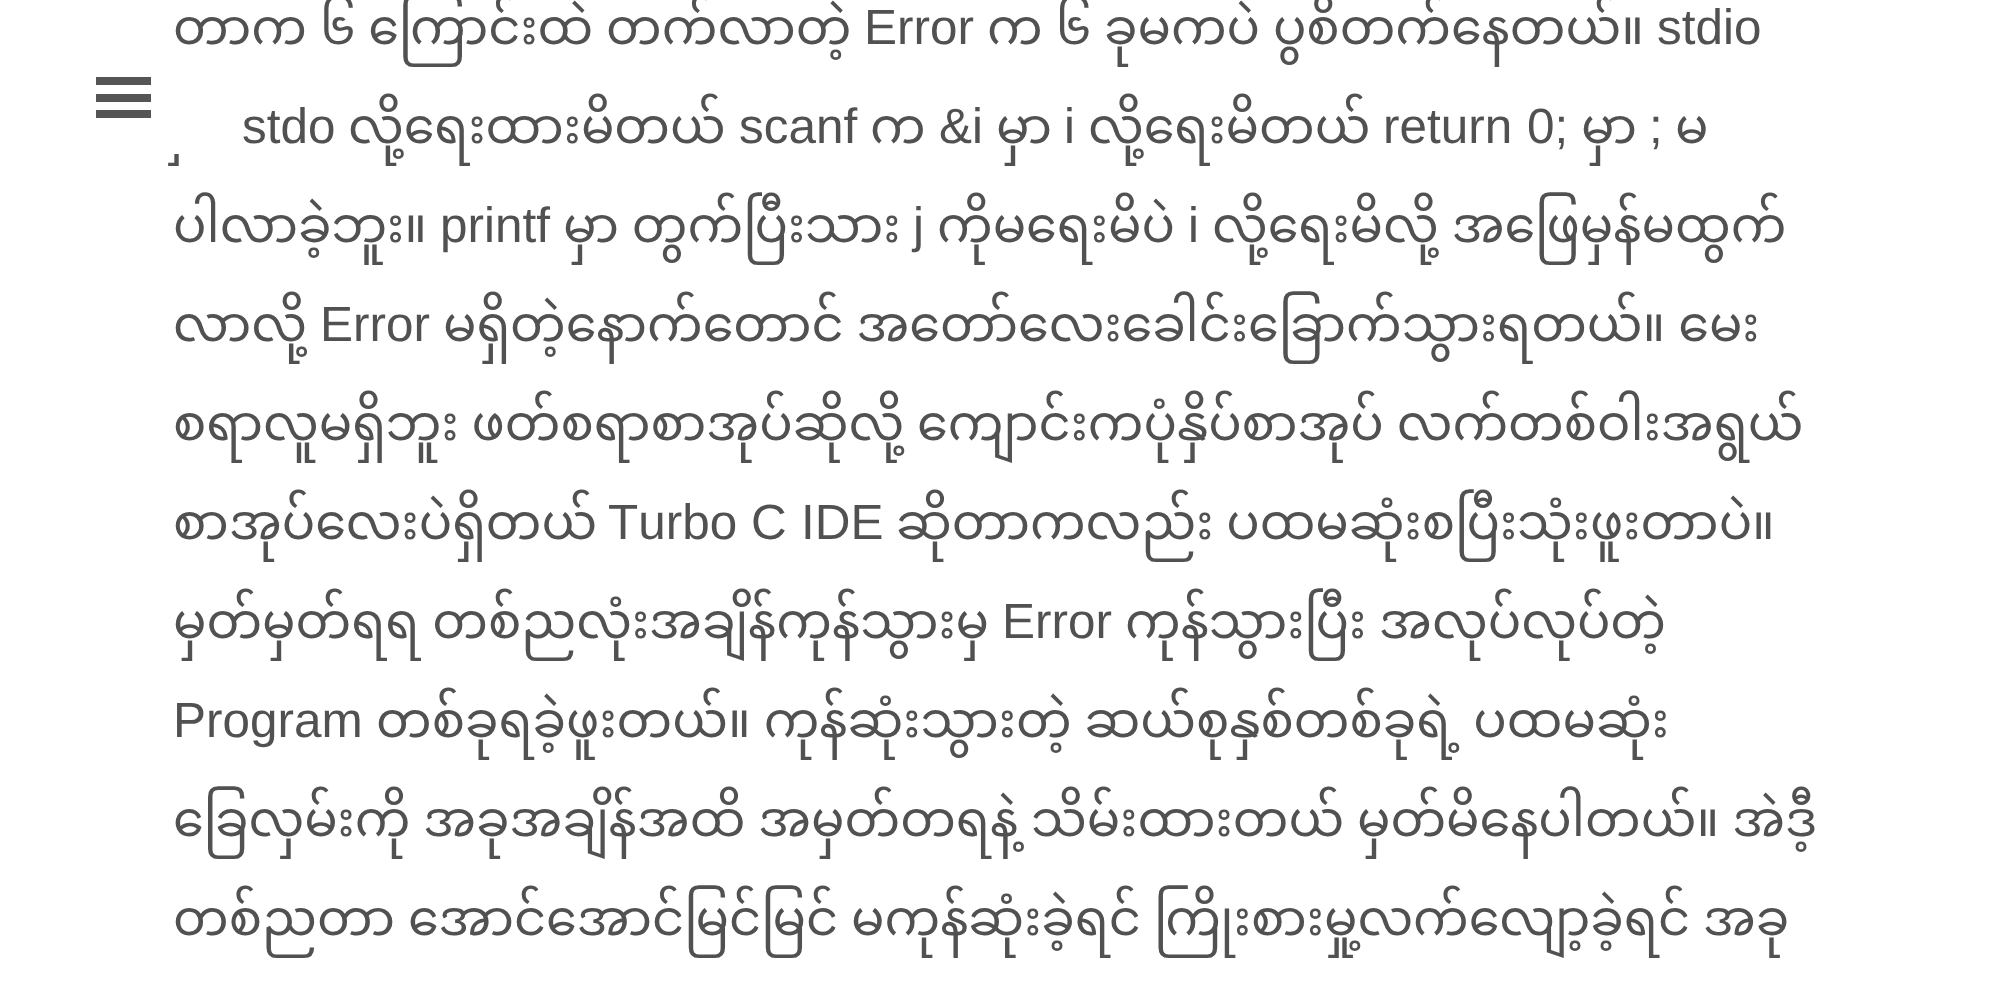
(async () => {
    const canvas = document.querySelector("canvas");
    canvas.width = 1995;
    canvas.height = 987;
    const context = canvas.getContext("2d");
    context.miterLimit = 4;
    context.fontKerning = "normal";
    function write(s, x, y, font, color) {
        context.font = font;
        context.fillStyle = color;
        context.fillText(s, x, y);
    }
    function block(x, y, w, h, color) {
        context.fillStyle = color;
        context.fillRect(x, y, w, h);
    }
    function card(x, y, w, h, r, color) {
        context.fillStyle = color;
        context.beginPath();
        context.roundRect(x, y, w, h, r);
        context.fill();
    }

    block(0, 0, 1995, 987, "rgb(255, 255, 255)");
    write("တာက ၆ ကြောင်းထဲ တက်လာတဲ့", 173, 44, "49.5px Noto Sans Myanmar", "rgb(81, 81, 81)");
    write("ှ", 192, 143, "49.5px Noto Sans Myanmar", "rgb(81, 81, 81)");
    card(55, 44, 138, 110, 14, "rgb(255, 255, 255)");
    block(96, 77, 55, 8, "rgb(85, 85, 85)");
    block(96, 94, 55, 8, "rgb(85, 85, 85)");
    block(96, 110, 55, 8, "rgb(85, 85, 85)");
    write("Error", 864, 44, "49.5px TharLon", "rgb(81, 81, 81)");
    write("က ၆ ခုမကပဲ ပွစိတက်နေတယ်။", 987, 44, "49.5px Noto Sans Myanmar", "rgb(81, 81, 81)");
    write("stdio", 1657, 44, "49.5px TharLon", "rgb(81, 81, 81)");
    write("stdo", 242, 143, "49.5px TharLon", "rgb(81, 81, 81)");
    write("လို့ရေးထားမိတယ်", 348, 143, "49.5px Noto Sans Myanmar", "rgb(81, 81, 81)");
    write("scanf", 739, 143, "49.5px TharLon", "rgb(81, 81, 81)");
    write("&i", 939, 143, "49.5px TharLon", "rgb(81, 81, 81)");
    write("i", 1064, 143, "49.5px TharLon", "rgb(81, 81, 81)");
    write("လို့ရေးမိတယ်", 1088, 143, "49.5px Noto Sans Myanmar", "rgb(81, 81, 81)");
    write("က", 870, 143, "49.5px Noto Sans Myanmar", "rgb(81, 81, 81)");
    write("မှာ", 996, 143, "49.5px Noto Sans Myanmar", "rgb(81, 81, 81)");
    context.wordSpacing = "-1px";
    write("return 0;", 1383, 143, "49.5px TharLon", "rgb(81, 81, 81)");
    context.wordSpacing = "0px";
    write("မှာ", 1581, 143, "49.5px Noto Sans Myanmar", "rgb(81, 81, 81)");
    write(";", 1649, 143, "49.5px TharLon", "rgb(81, 81, 81)");
    write("မ", 1675, 143, "49.5px Noto Sans Myanmar", "rgb(81, 81, 81)");
    write("ပါလာခဲ့ဘူး။", 173, 242, "49.5px Noto Sans Myanmar", "rgb(81, 81, 81)");
    write("printf", 440, 242, "49.5px TharLon", "rgb(81, 81, 81)");
    write("မှာ တွက်ပြီးသား", 563, 242, "49.5px Noto Sans Myanmar", "rgb(81, 81, 81)");
    write("j", 913, 242, "49.5px TharLon", "rgb(81, 81, 81)");
    write("ကိုမရေးမိပဲ", 937, 242, "49.5px Noto Sans Myanmar", "rgb(81, 81, 81)");
    write("i", 1188, 242, "49.5px TharLon", "rgb(81, 81, 81)");
    write("လို့ရေးမိလို့ အဖြေမှန်မထွက်", 1212, 242, "49.5px Noto Sans Myanmar", "rgb(81, 81, 81)");
    write("လာလို့", 173, 341, "49.5px Noto Sans Myanmar", "rgb(81, 81, 81)");
    write("Error", 320, 341, "49.5px TharLon", "rgb(81, 81, 81)");
    write("မရှိတဲ့နောက်တောင် အတော်လေးခေါင်းခြောက်သွားရတယ်။ မေး", 443, 341, "49.5px Noto Sans Myanmar", "rgb(81, 81, 81)");
    write("စရာလူမရှိဘူး ဖတ်စရာစာအုပ်ဆိုလို့ ကျောင်းကပုံနှိပ်စာအုပ် လက်တစ်ဝါးအရွယ်", 173, 440, "49.5px Noto Sans Myanmar", "rgb(81, 81, 81)");
    write("စာအုပ်လေးပဲရှိတယ်", 173, 539, "49.5px Noto Sans Myanmar", "rgb(81, 81, 81)");
    context.wordSpacing = "-2px";
    write("Turbo C", 608, 539, "49.5px TharLon", "rgb(81, 81, 81)");
    context.wordSpacing = "0px";
    write("IDE", 801, 539, "49.5px TharLon", "rgb(81, 81, 81)");
    write("ဆိုတာကလည်း ပထမဆုံးစပြီးသုံးဖူးတာပဲ။", 896, 539, "49.5px Noto Sans Myanmar", "rgb(81, 81, 81)");
    write("မှတ်မှတ်ရရ တစ်ညလုံးအချိန်ကုန်သွားမှ", 173, 638, "49.5px Noto Sans Myanmar", "rgb(81, 81, 81)");
    write("Error", 1002, 638, "49.5px TharLon", "rgb(81, 81, 81)");
    write("ကုန်သွားပြီး အလုပ်လုပ်တဲ့", 1125, 638, "49.5px Noto Sans Myanmar", "rgb(81, 81, 81)");
    write("Program", 173, 737, "49.5px TharLon", "rgb(81, 81, 81)");
    write("တစ်ခုရခဲ့ဖူးတယ်။ ကုန်ဆုံးသွားတဲ့ ဆယ်စုနှစ်တစ်ခုရဲ့ ပထမဆုံး", 376, 737, "49.5px Noto Sans Myanmar", "rgb(81, 81, 81)");
    write("ခြေလှမ်းကို အခုအချိန်အထိ အမှတ်တရနဲ့ သိမ်းထားတယ် မှတ်မိနေပါတယ်။ အဲဒီ့", 173, 836, "49.5px Noto Sans Myanmar", "rgb(81, 81, 81)");
    write("တစ်ညတာ အောင်အောင်မြင်မြင် မကုန်ဆုံးခဲ့ရင် ကြိုးစားမှု့လက်လျော့ခဲ့ရင် အခု", 173, 935, "49.5px Noto Sans Myanmar", "rgb(81, 81, 81)");
})();
